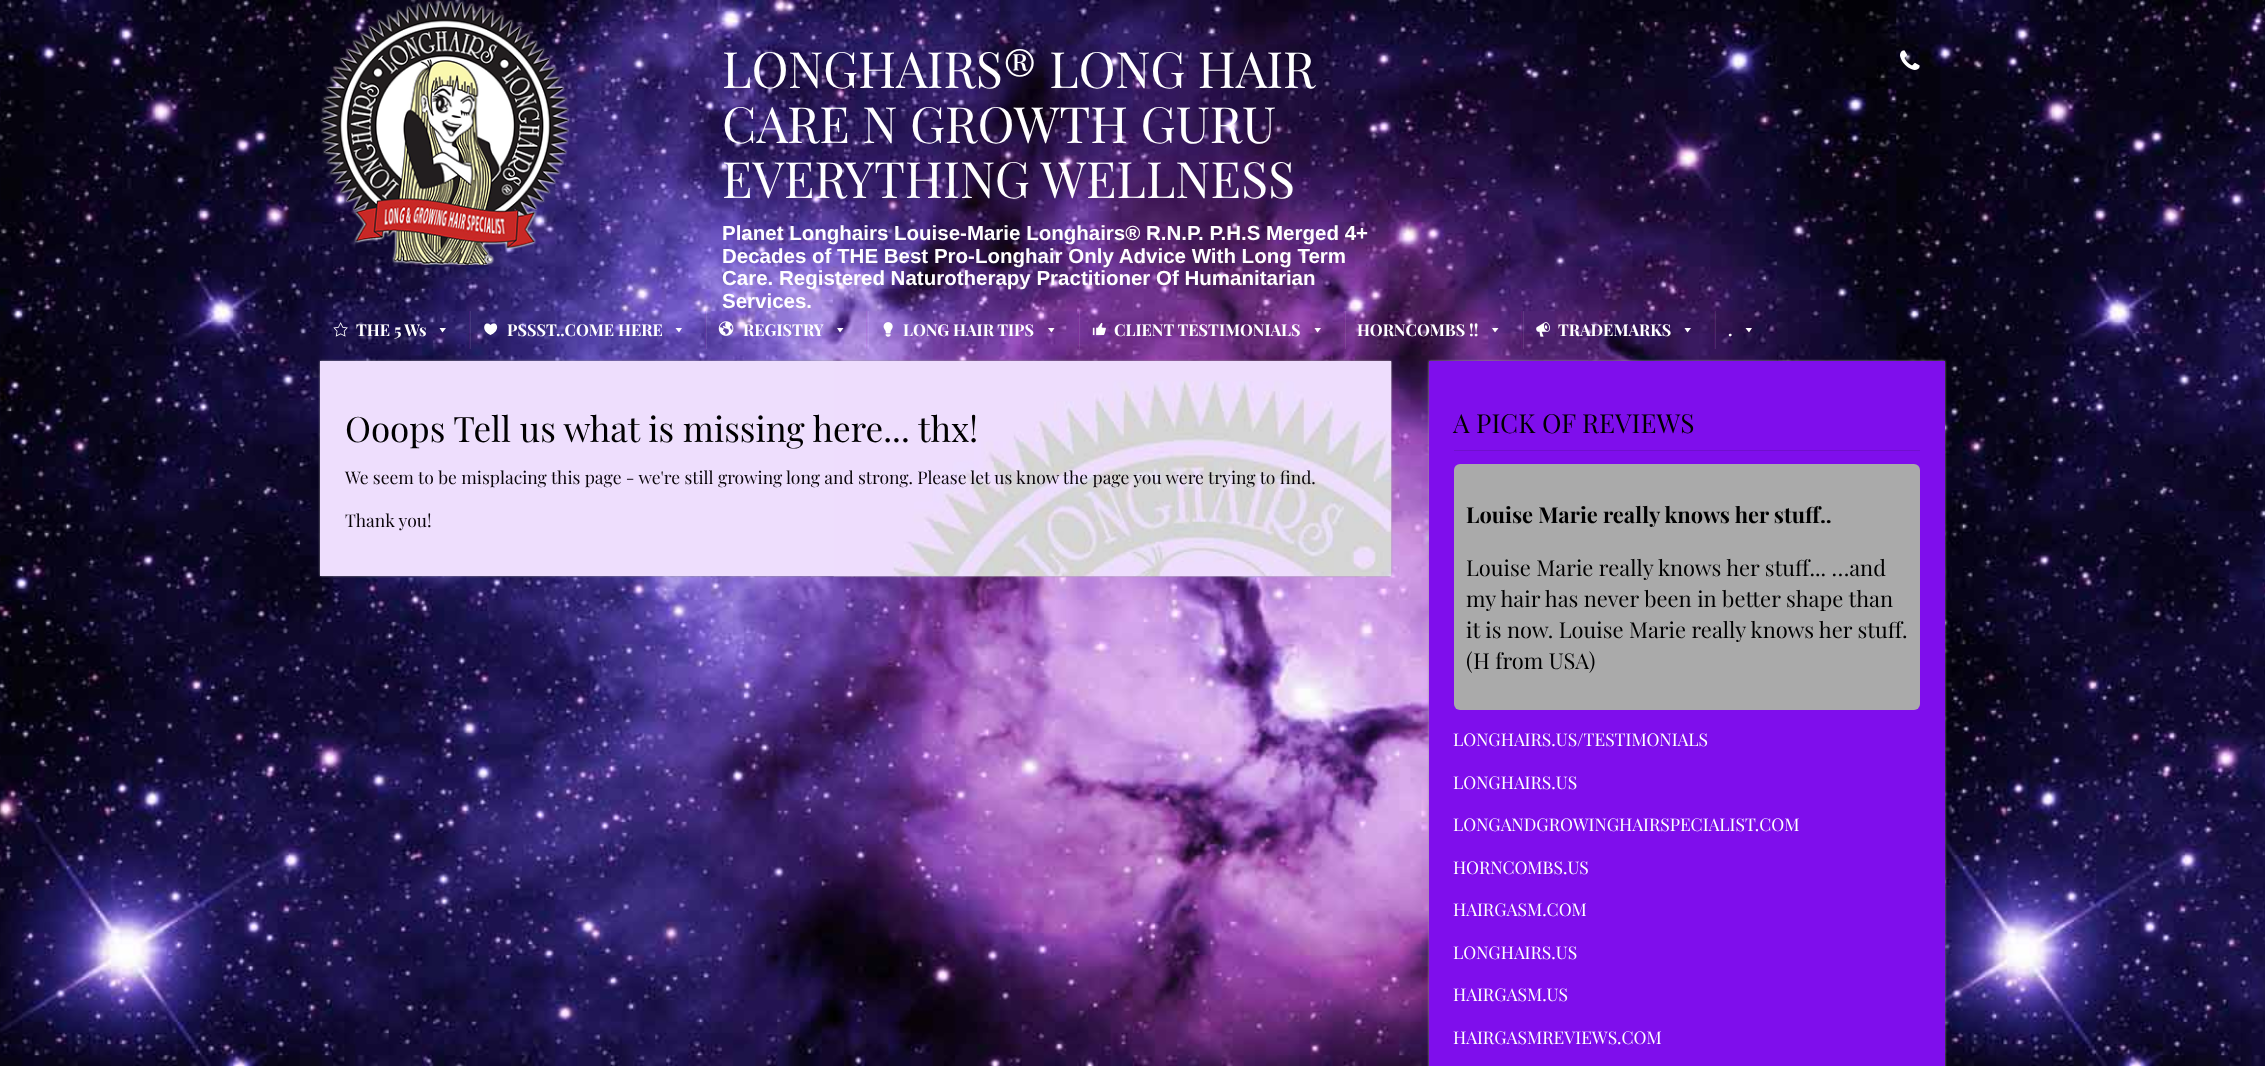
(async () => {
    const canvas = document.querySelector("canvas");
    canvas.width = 2265;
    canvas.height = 1066;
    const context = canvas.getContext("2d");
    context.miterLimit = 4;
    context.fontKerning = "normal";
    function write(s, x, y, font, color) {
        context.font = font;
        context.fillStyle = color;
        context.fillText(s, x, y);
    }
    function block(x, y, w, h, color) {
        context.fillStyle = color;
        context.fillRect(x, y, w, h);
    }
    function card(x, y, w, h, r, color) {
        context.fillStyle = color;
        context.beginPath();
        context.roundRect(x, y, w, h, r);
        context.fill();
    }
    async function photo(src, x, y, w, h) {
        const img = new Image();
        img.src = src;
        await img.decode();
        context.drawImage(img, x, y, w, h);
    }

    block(0, 0, 2265, 1066, "rgb(255, 255, 255)");
    await photo("media/1.png", 0, 0, 2265, 1066);
    await photo("media/2.png", 320, 0, 250, 265);
    write("LONGHAIRS® LONG HAIR", 722, 88, "50px Playfair Display", "rgb(255, 255, 255)");
    write("CARE N GROWTH GURU", 722, 143, "50px Playfair Display", "rgb(255, 255, 255)");
    write("EVERYTHING WELLNESS", 722, 198, "50px Playfair Display", "rgb(255, 255, 255)");
    write("Planet Longhairs Louise-Marie Longhairs® R.N.P. P.H.S Merged 4+", 722, 240, "bold 20.5px Liberation Sans", "rgb(255, 255, 255)");
    write("Decades of THE Best Pro-Longhair Only Advice With Long Term", 722, 263, "bold 20.5px Liberation Sans", "rgb(255, 255, 255)");
    write("Care. Registered Naturotherapy Practitioner Of Humanitarian", 722, 285, "bold 20.5px Liberation Sans", "rgb(255, 255, 255)");
    write("Services.", 722, 308, "bold 20.5px Liberation Sans", "rgb(255, 255, 255)");
    await photo("media/3.png", 1900, 50, 20, 20);
    await photo("media/4.png", 333, 322, 15, 15);
    write("THE 5 Ws", 356, 336, "bold 16.25px Playfair Display", "rgb(255, 255, 255)");
    block(470, 311, 1, 38, "rgba(255, 255, 255, 0.1)");
    block(469, 311, 1, 38, "rgba(203, 9, 181, 0.1)");
    context.fillStyle = "rgb(255, 255, 255)";
    context.beginPath();
    context.moveTo(446, 328);
    context.lineTo(442.5, 332.5);
    context.lineTo(439.5, 328);
    context.closePath();
    context.moveTo(490.5, 335);
    context.bezierCurveTo(501.5, 330.5, 497, 319.5, 490.5, 325);
    context.bezierCurveTo(484.5, 319.5, 480, 330.5, 490.5, 335);
    context.closePath();
    context.fill();
    write("PSSST..COME HERE", 507, 336, "bold 16.25px Playfair Display", "rgb(255, 255, 255)");
    context.beginPath();
    context.moveTo(682, 328);
    context.lineTo(679, 332.5);
    context.lineTo(675.5, 328);
    context.closePath();
    context.fill();
    block(706, 311, 1, 38, "rgba(255, 255, 255, 0.1)");
    block(705, 311, 1, 38, "rgba(203, 9, 181, 0.1)");
    await photo("media/5.png", 718, 321, 16, 15);
    write("REGISTRY", 743, 336, "bold 16.25px Playfair Display", "rgb(255, 255, 255)");
    context.beginPath();
    context.moveTo(843.5, 328);
    context.lineTo(840, 332.5);
    context.lineTo(837, 328);
    context.closePath();
    context.fill();
    block(868, 311, 1, 38, "rgba(255, 255, 255, 0.1)");
    block(866, 311, 1, 38, "rgba(203, 9, 181, 0.1)");
    await photo("media/6.png", 883, 322, 10, 15);
    write("LONG HAIR TIPS", 903, 336, "bold 16.25px Playfair Display", "rgb(255, 255, 255)");
    context.beginPath();
    context.moveTo(1054.5, 328);
    context.lineTo(1051.5, 332.5);
    context.lineTo(1048, 328);
    context.closePath();
    context.fill();
    block(1079, 311, 1, 38, "rgba(255, 255, 255, 0.1)");
    block(1078, 311, 1, 38, "rgba(203, 9, 181, 0.1)");
    await photo("media/7.png", 1092, 322, 14, 14);
    write("CLIENT TESTIMONIALS", 1114, 336, "bold 16.25px Playfair Display", "rgb(255, 255, 255)");
    context.beginPath();
    context.moveTo(1321, 328);
    context.lineTo(1317.5, 332.5);
    context.lineTo(1314.5, 328);
    context.closePath();
    context.fill();
    block(1345, 311, 1, 38, "rgba(255, 255, 255, 0.1)");
    block(1344, 311, 1, 38, "rgba(203, 9, 181, 0.1)");
    write("HORNCOMBS !!", 1357, 336, "bold 16.25px Playfair Display", "rgb(255, 255, 255)");
    context.beginPath();
    context.moveTo(1498.5, 328);
    context.lineTo(1495, 332.5);
    context.lineTo(1492, 328);
    context.closePath();
    context.fill();
    block(1523, 311, 1, 38, "rgba(255, 255, 255, 0.1)");
    block(1521, 311, 1, 38, "rgba(203, 9, 181, 0.1)");
    await photo("media/8.png", 1536, 322, 14, 15);
    write("TRADEMARKS", 1558, 336, "bold 16.25px Playfair Display", "rgb(255, 255, 255)");
    context.beginPath();
    context.moveTo(1691, 328);
    context.lineTo(1687.5, 332.5);
    context.lineTo(1684.5, 328);
    context.closePath();
    context.fill();
    block(1715, 311, 1, 38, "rgba(255, 255, 255, 0.1)");
    block(1714, 311, 1, 38, "rgba(203, 9, 181, 0.1)");
    context.fillStyle = "rgb(255, 255, 255)";
    context.beginPath();
    context.moveTo(1752, 328);
    context.lineTo(1749, 332.5);
    context.lineTo(1745.5, 328);
    context.closePath();
    context.fill();
    write(".", 1728, 336, "bold 16.25px Playfair Display", "rgb(255, 255, 255)");
    context.fillStyle = "rgb(153, 153, 153)";
    context.filter = "blur(1px)";
    context.beginPath();
    context.rect(320, 361, 1071, 215);
    context.fill();
    context.filter = "none";
    block(320, 361, 1071, 215, "rgb(238, 222, 253)");
    await photo("media/9.png", 833, 361, 559, 216);
    write("Ooops Tell us what is missing here... thx!", 345, 442, "35px Playfair Display", "rgb(0, 0, 0)");
    write("We seem to be misplacing this page - we're still growing long and strong. Please let us know the page you were trying to find.", 345, 484, "17.5px Playfair Display", "rgb(10, 5, 10)");
    write("Thank you!", 345, 527, "17.5px Playfair Display", "rgb(10, 5, 10)");
    context.fillStyle = "rgb(153, 153, 153)";
    context.filter = "blur(1px)";
    context.beginPath();
    context.rect(1429, 361, 516, 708);
    context.fill();
    context.filter = "none";
    block(1429, 361, 516, 705, "rgb(127, 14, 236)");
    block(1454, 450, 466, 1, "rgb(112, 16, 204)");
    write("A PICK OF REVIEWS", 1453, 433, "26.25px Playfair Display", "rgb(0, 0, 0)");
    card(1454, 464, 466, 246, 6, "rgb(170, 170, 170)");
    write("Louise Marie really knows her stuff..", 1466, 523, "bold 21.9px Playfair Display", "rgb(0, 0, 0)");
    write("Louise Marie really knows her stuff... …and", 1466, 576, "21.9px Playfair Display", "rgb(0, 0, 0)");
    write("my hair has never been in better shape than", 1466, 607, "21.9px Playfair Display", "rgb(0, 0, 0)");
    write("it is now. Louise Marie really knows her stuff.", 1466, 638, "21.9px Playfair Display", "rgb(0, 0, 0)");
    write("(H from USA)", 1466, 669, "21.9px Playfair Display", "rgb(0, 0, 0)");
    write("LONGHAIRS.US/TESTIMONIALS", 1453, 746, "17.5px Playfair Display", "rgb(255, 255, 255)");
    write("LONGHAIRS.US", 1453, 789, "17.5px Playfair Display", "rgb(255, 255, 255)");
    write("LONGANDGROWINGHAIRSPECIALIST.COM", 1453, 831, "17.5px Playfair Display", "rgb(255, 255, 255)");
    write("HORNCOMBS.US", 1453, 874, "17.5px Playfair Display", "rgb(255, 255, 255)");
    write("HAIRGASM.COM", 1453, 916, "17.5px Playfair Display", "rgb(255, 255, 255)");
    write("LONGHAIRS.US", 1453, 959, "17.5px Playfair Display", "rgb(255, 255, 255)");
    write("HAIRGASM.US", 1453, 1001, "17.5px Playfair Display", "rgb(255, 255, 255)");
    write("HAIRGASMREVIEWS.COM", 1453, 1044, "17.5px Playfair Display", "rgb(255, 255, 255)");
})();
